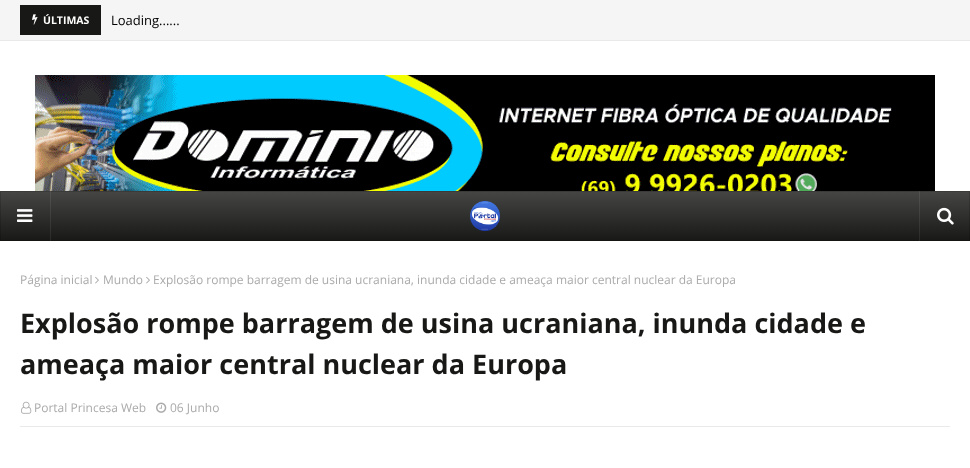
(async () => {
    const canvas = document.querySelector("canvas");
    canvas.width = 970;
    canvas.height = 468;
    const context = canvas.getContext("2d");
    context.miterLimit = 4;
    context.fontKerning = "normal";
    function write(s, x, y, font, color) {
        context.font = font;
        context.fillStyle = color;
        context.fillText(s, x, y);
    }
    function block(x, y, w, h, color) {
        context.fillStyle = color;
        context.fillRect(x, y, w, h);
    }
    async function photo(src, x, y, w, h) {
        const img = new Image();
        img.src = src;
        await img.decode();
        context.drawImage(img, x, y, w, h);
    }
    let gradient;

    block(0, 0, 970, 468, "rgb(255, 255, 255)");
    block(0, 0, 970, 40, "rgb(245, 245, 245)");
    block(0, 40, 970, 1, "rgb(233, 233, 233)");
    block(20, 5, 81, 30, "rgb(24, 25, 22)");
    await photo("media/1.png", 32, 14, 6, 11);
    write("ÚLTIMAS", 43, 24, "bold 10.5px Open Sans", "rgb(255, 255, 255)");
    write("Loading......", 111, 25, "13px Open Sans", "rgb(0, 0, 0)");
    await photo("media/2.png", 35, 75, 900, 116);
    gradient = context.createLinearGradient(485, 191, 485, 241);
    gradient.addColorStop(0, "rgb(70, 71, 69)");
    gradient.addColorStop(1, "rgb(24, 25, 22)");
    context.fillStyle = gradient;
    context.fillRect(0, 191, 970, 50);
    context.strokeStyle = "rgba(0, 0, 0, 0.15)";
    context.strokeRect(0.5, 191.5, 969, 49);
    block(50, 191, 1, 50, "rgba(255, 255, 255, 0.08)");
    await photo("media/3.png", 17, 209, 16, 13);
    await photo("media/4.png", 470, 201, 30, 30);
    block(919, 191, 1, 50, "rgba(255, 255, 255, 0.08)");
    await photo("media/5.png", 937, 207, 17, 18);
    write("Página inicial", 20, 284, "12px Open Sans", "rgb(170, 170, 170)");
    await photo("media/6.png", 95, 276, 4, 8);
    write("Mundo", 103, 284, "12px Open Sans", "rgb(170, 170, 170)");
    await photo("media/6.png", 146, 276, 4, 8);
    write("Explosão rompe barragem de usina ucraniana, inunda cidade e ameaça maior central nuclear da Europa", 153, 284, "12px Open Sans", "rgb(170, 170, 170)");
    write("Explosão rompe barragem de usina ucraniana, inunda cidade e", 20, 333, "bold 27px Open Sans", "rgb(24, 25, 22)");
    write("ameaça maior central nuclear da Europa", 20, 374, "bold 27px Open Sans", "rgb(24, 25, 22)");
    block(20, 426, 930, 1, "rgb(234, 234, 234)");
    await photo("media/7.png", 21, 401, 11, 13);
    write("Portal Princesa Web", 34, 412, "12px Open Sans", "rgb(170, 170, 170)");
    await photo("media/8.png", 156, 402, 11, 11);
    write("06 Junho", 170, 412, "12px Open Sans", "rgb(170, 170, 170)");
})();
